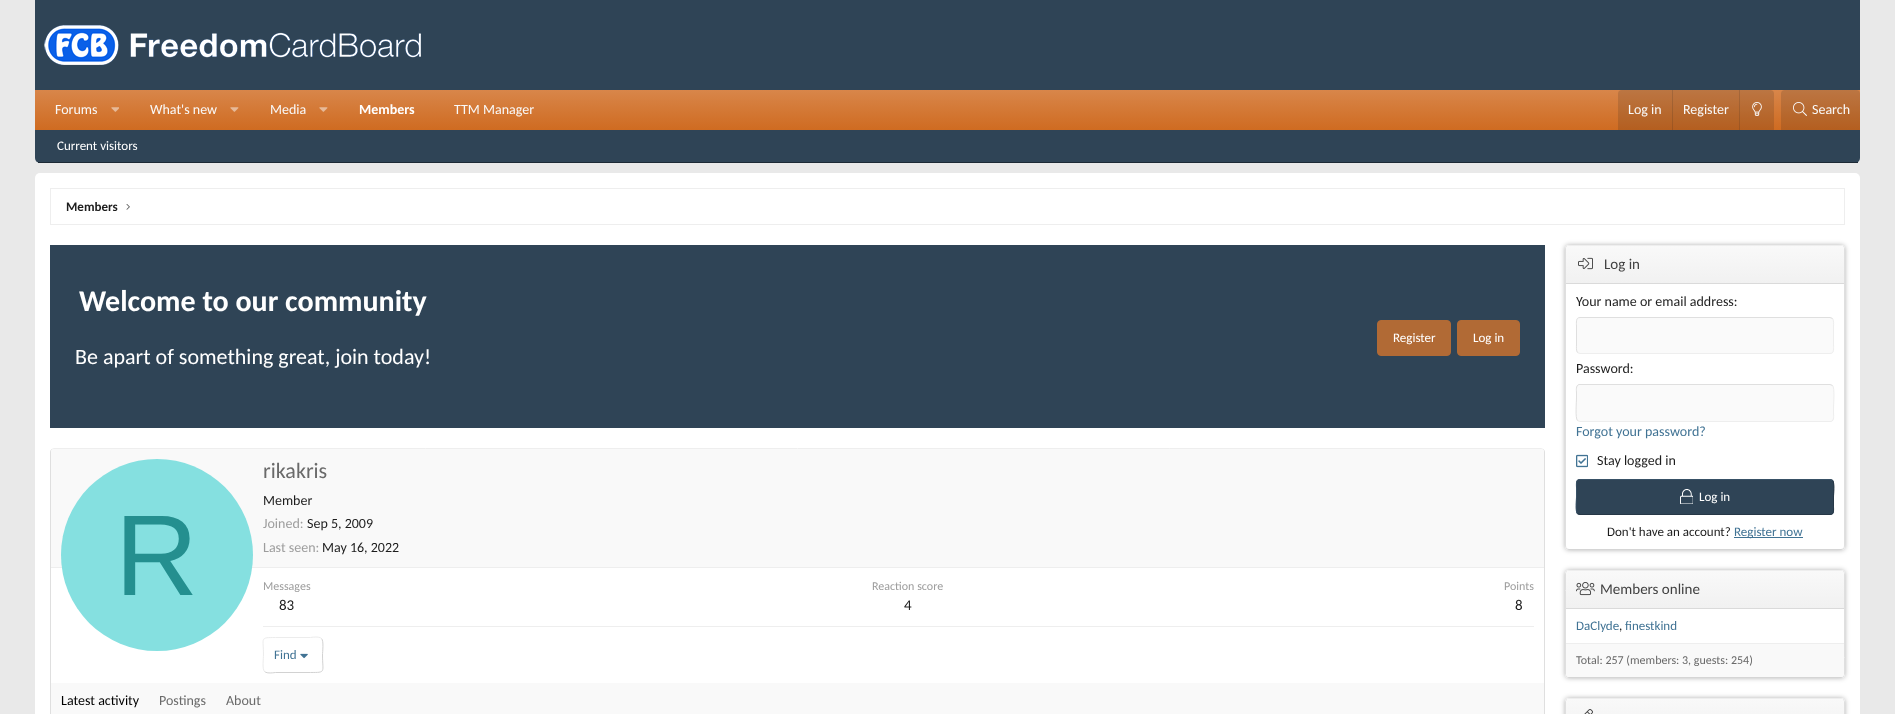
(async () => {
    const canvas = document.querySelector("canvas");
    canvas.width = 1895;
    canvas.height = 714;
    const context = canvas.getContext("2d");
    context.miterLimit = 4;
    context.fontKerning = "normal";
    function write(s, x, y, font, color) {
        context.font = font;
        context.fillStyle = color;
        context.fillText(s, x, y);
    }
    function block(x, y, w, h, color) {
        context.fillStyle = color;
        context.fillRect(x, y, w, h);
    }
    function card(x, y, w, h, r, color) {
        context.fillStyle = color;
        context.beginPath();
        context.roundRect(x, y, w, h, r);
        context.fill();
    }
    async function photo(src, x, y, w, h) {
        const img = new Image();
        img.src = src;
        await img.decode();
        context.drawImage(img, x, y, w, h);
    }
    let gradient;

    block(0, 0, 1895, 714, "rgb(233, 233, 233)");
    block(35, 0, 1825, 90, "rgb(47, 68, 86)");
    await photo("media/1.png", 44, 25, 377, 40);
    gradient = context.createLinearGradient(948, 90, 948, 130);
    gradient.addColorStop(0, "rgb(216, 134, 74)");
    gradient.addColorStop(1, "rgb(207, 107, 33)");
    context.fillStyle = gradient;
    context.fillRect(35, 90, 1825, 40);
    write("Forums", 55, 114, "14px Carlito", "rgb(249, 249, 249)");
    await photo("media/2.png", 111, 107, 8, 5);
    write("What's new", 150, 114, "14px Carlito", "rgb(249, 249, 249)");
    await photo("media/3.png", 230, 107, 9, 5);
    write("Media", 270, 114, "14px Carlito", "rgb(249, 249, 249)");
    await photo("media/3.png", 319, 107, 9, 5);
    write("Members", 359, 114, "bold 14px Carlito", "rgb(255, 255, 255)");
    write("TTM Manager", 454, 114, "14px Carlito", "rgb(249, 249, 249)");
    context.fillStyle = "rgba(29, 29, 29, 0.15)";
    context.beginPath();
    context.roundRect(1618, 90, 156, 40, [4, 4, 0, 0]);
    context.fill();
    write("Log in", 1628, 114, "14px Carlito", "rgb(249, 249, 249)");
    block(1672, 90, 1, 40, "rgba(29, 29, 29, 0.15)");
    write("Register", 1683, 114, "14px Carlito", "rgb(249, 249, 249)");
    block(1739, 90, 1, 40, "rgba(29, 29, 29, 0.15)");
    await photo("media/4.png", 1752, 102, 10, 14);
    context.beginPath();
    context.roundRect(1781, 90, 79, 40, [4, 4, 0, 0]);
    context.fill();
    await photo("media/5.png", 1793, 102, 14, 14);
    write("Search", 1812, 114, "14px Carlito", "rgb(249, 249, 249)");
    context.fillStyle = "rgb(47, 68, 86)";
    context.beginPath();
    context.roundRect(35, 130, 1825, 33, [0, 0, 5, 5]);
    context.fill();
    block(38, 162, 1820, 1, "rgb(29, 42, 53)");
    write("Current visitors", 57, 150, "13px Carlito", "rgb(255, 255, 255)");
    card(35, 173, 1825, 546, 5, "rgb(255, 255, 255)");
    context.strokeStyle = "rgb(238, 238, 238)";
    context.strokeRect(50.5, 188.5, 1794, 36);
    write("Members", 66, 211, "bold 13px Carlito", "rgb(29, 29, 29)");
    await photo("media/6.png", 126, 204, 4, 6);
    block(50, 245, 1495, 183, "rgb(47, 68, 86)");
    write("Welcome to our community", 79, 311, "bold 30px Carlito", "rgb(255, 255, 255)");
    write("Be apart of something great, join today!", 75, 364, "22px Carlito", "rgb(255, 255, 255)");
    context.fillStyle = "rgb(177, 106, 53)";
    context.beginPath();
    context.roundRect(1377.5, 320.5, 73, 35, 3.5);
    context.fill();
    context.strokeStyle = "rgb(177, 106, 53)";
    context.stroke();
    write("Register", 1393, 342, "13px Carlito", "rgb(255, 255, 255)");
    context.fillStyle = "rgb(177, 106, 53)";
    context.beginPath();
    context.roundRect(1457.5, 320.5, 62, 35, 3.5);
    context.fill();
    context.stroke();
    write("Log in", 1473, 342, "13px Carlito", "rgb(255, 255, 255)");
    context.beginPath();
    context.moveTo(51.5, 449.5);
    context.lineTo(54, 448.5);
    context.lineTo(1541, 448.5);
    context.lineTo(1543.5, 449.5);
    context.strokeStyle = "rgb(238, 238, 238)";
    context.stroke();
    context.beginPath();
    context.moveTo(1543.5, 449.5);
    context.bezierCurveTo(1544, 450, 1544.5, 451, 1544.5, 452);
    context.lineTo(1544.5, 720);
    context.bezierCurveTo(1544.5, 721, 1544, 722, 1543.5, 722.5);
    context.strokeStyle = "rgb(223, 223, 223)";
    context.stroke();
    context.beginPath();
    context.moveTo(51.5, 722.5);
    context.bezierCurveTo(51, 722, 50.5, 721, 50.5, 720);
    context.lineTo(50.5, 452);
    context.bezierCurveTo(50.5, 451, 51, 450, 51.5, 449.5);
    context.stroke();
    context.fillStyle = "rgb(249, 249, 249)";
    context.beginPath();
    context.roundRect(51, 449, 1493, 119, [3, 3, 0, 0]);
    context.fill();
    block(51, 567, 1493, 1, "rgb(238, 238, 238)");
    context.fillStyle = "rgb(133, 224, 224)";
    context.beginPath();
    context.arc(157, 555, 96, 0, Math.PI * 2);
    context.fill();
    write("R", 115, 595, "115px Liberation Sans", "rgb(36, 143, 143)");
    write("rikakris", 263, 478, "22px Carlito", "rgb(106, 106, 106)");
    write("Member", 263, 505, "14px Carlito", "rgb(29, 29, 29)");
    write("Joined:", 263, 528, "14px Carlito", "rgb(157, 157, 157)");
    write("Sep 5, 2009", 307, 528, "14px Carlito", "rgb(29, 29, 29)");
    write("Last seen:", 263, 552, "14px Carlito", "rgb(157, 157, 157)");
    write("May 16, 2022", 322, 552, "14px Carlito", "rgb(29, 29, 29)");
    write("Messages", 263, 590, "12px Carlito", "rgb(157, 157, 157)");
    write("83", 279, 610, "15px Carlito", "rgb(29, 29, 29)");
    write("Reaction score", 872, 590, "12px Carlito", "rgb(157, 157, 157)");
    write("4", 904, 610, "15px Carlito", "rgb(29, 29, 29)");
    write("Points", 1504, 590, "12px Carlito", "rgb(157, 157, 157)");
    write("8", 1515, 610, "15px Carlito", "rgb(29, 29, 29)");
    block(263, 626, 1271, 1, "rgb(238, 238, 238)");
    context.beginPath();
    context.moveTo(321.5, 638.5);
    context.bezierCurveTo(324, 641, 322.5, 652, 322.5, 655);
    context.bezierCurveTo(322.5, 672.5, 326.5, 672.5, 310.5, 672.5);
    context.lineTo(275.5, 672.5);
    context.bezierCurveTo(275, 672.5, 267, 674, 264.5, 671.5);
    context.strokeStyle = "rgb(210, 210, 210)";
    context.stroke();
    context.beginPath();
    context.moveTo(264.5, 671.5);
    context.bezierCurveTo(262, 669, 263.5, 658, 263.5, 655);
    context.bezierCurveTo(263.5, 637.5, 259.5, 637.5, 275.5, 637.5);
    context.lineTo(310.5, 637.5);
    context.bezierCurveTo(311, 637.5, 319, 636, 321.5, 638.5);
    context.strokeStyle = "rgb(236, 236, 236)";
    context.stroke();
    write("Find", 274, 659, "13px Carlito", "rgb(65, 115, 148)");
    await photo("media/7.png", 300, 653, 8, 6);
    block(51, 683, 1493, 31, "rgb(249, 249, 249)");
    write("Latest activity", 61, 705, "14px Carlito", "rgb(0, 0, 0)");
    write("Postings", 159, 705, "14px Carlito", "rgb(106, 106, 106)");
    write("About", 226, 705, "14px Carlito", "rgb(106, 106, 106)");
    context.fillStyle = "rgba(0, 0, 0, 0.3)";
    context.filter = "blur(2.5px)";
    context.beginPath();
    context.roundRect(1565, 245, 280, 305, 4);
    context.fill();
    context.filter = "none";
    card(1565, 245, 280, 305, 4, "rgb(255, 255, 255)");
    context.beginPath();
    context.moveTo(1566.5, 246.5);
    context.bezierCurveTo(1567, 246, 1568, 245.5, 1569, 245.5);
    context.lineTo(1841, 245.5);
    context.bezierCurveTo(1842, 245.5, 1843, 246, 1843.5, 246.5);
    context.strokeStyle = "rgb(238, 238, 238)";
    context.stroke();
    context.beginPath();
    context.moveTo(1843.5, 246.5);
    context.bezierCurveTo(1844, 247, 1844.5, 248, 1844.5, 249);
    context.lineTo(1844.5, 546);
    context.bezierCurveTo(1844.5, 547, 1844, 548, 1843.5, 548.5);
    context.strokeStyle = "rgb(223, 223, 223)";
    context.stroke();
    context.beginPath();
    context.moveTo(1843.5, 548.5);
    context.bezierCurveTo(1843, 549, 1842, 549.5, 1841, 549.5);
    context.lineTo(1569, 549.5);
    context.bezierCurveTo(1568, 549.5, 1567, 549, 1566.5, 548.5);
    context.strokeStyle = "rgb(213, 213, 213)";
    context.stroke();
    context.beginPath();
    context.moveTo(1566.5, 548.5);
    context.bezierCurveTo(1566, 548, 1565.5, 547, 1565.5, 546);
    context.lineTo(1565.5, 249);
    context.bezierCurveTo(1565.5, 248, 1566, 247, 1566.5, 246.5);
    context.strokeStyle = "rgb(223, 223, 223)";
    context.stroke();
    gradient = context.createLinearGradient(1705, 246, 1705, 283);
    gradient.addColorStop(0, "rgb(249, 249, 249)");
    gradient.addColorStop(1, "rgb(241, 241, 241)");
    context.fillStyle = gradient;
    context.beginPath();
    context.roundRect(1566, 246, 278, 37, [3, 3, 0, 0]);
    context.fill();
    block(1566, 283, 278, 1, "rgb(218, 218, 218)");
    await photo("media/8.png", 1578, 257, 15, 13);
    write("Log in", 1604, 269, "15px Carlito", "rgb(66, 66, 66)");
    write("Your name or email address:", 1576, 306, "14px Carlito", "rgb(29, 29, 29)");
    card(1576, 317, 258, 37, 4, "rgb(250, 250, 250)");
    context.beginPath();
    context.moveTo(1832.5, 318.5);
    context.bezierCurveTo(1834, 320.5, 1833.5, 324, 1833.5, 326);
    context.lineTo(1833.5, 345);
    context.bezierCurveTo(1833.5, 348, 1834.5, 353.5, 1830, 353.5);
    context.lineTo(1580, 353.5);
    context.lineTo(1577.5, 352.5);
    context.strokeStyle = "rgb(238, 238, 238)";
    context.stroke();
    context.beginPath();
    context.moveTo(1577.5, 352.5);
    context.bezierCurveTo(1576, 350.5, 1576.5, 347, 1576.5, 345);
    context.lineTo(1576.5, 326);
    context.bezierCurveTo(1576.5, 323, 1575.5, 317.5, 1580, 317.5);
    context.lineTo(1830, 317.5);
    context.lineTo(1832.5, 318.5);
    context.strokeStyle = "rgb(223, 223, 223)";
    context.stroke();
    write("Password:", 1576, 373, "14px Carlito", "rgb(29, 29, 29)");
    card(1576, 384, 258, 38, 4, "rgb(250, 250, 250)");
    context.beginPath();
    context.moveTo(1832.5, 385.5);
    context.bezierCurveTo(1835, 388, 1833.5, 404, 1833.5, 408);
    context.lineTo(1833.5, 413);
    context.bezierCurveTo(1833.5, 415.5, 1834.5, 420.5, 1831, 421.5);
    context.lineTo(1580, 421.5);
    context.lineTo(1577.5, 420.5);
    context.strokeStyle = "rgb(238, 238, 238)";
    context.stroke();
    context.beginPath();
    context.moveTo(1577.5, 420.5);
    context.bezierCurveTo(1575, 418, 1576.5, 402, 1576.5, 398);
    context.lineTo(1576.5, 393);
    context.bezierCurveTo(1576.5, 390.5, 1575.5, 385.5, 1579, 384.5);
    context.lineTo(1830, 384.5);
    context.lineTo(1832.5, 385.5);
    context.strokeStyle = "rgb(223, 223, 223)";
    context.stroke();
    write("Forgot your password?", 1576, 436, "14px Carlito", "rgb(65, 115, 148)");
    await photo("media/9.png", 1576, 454, 12, 14);
    write("Stay logged in", 1597, 465, "14px Carlito", "rgb(29, 29, 29)");
    card(1576, 479, 258, 36, 4, "rgb(47, 68, 86)");
    context.beginPath();
    context.moveTo(1832.5, 480.5);
    context.bezierCurveTo(1835, 483, 1833.5, 494, 1833.5, 497);
    context.lineTo(1833.5, 506.5);
    context.bezierCurveTo(1833.5, 509, 1834.5, 514.5, 1830, 514.5);
    context.lineTo(1580, 514.5);
    context.lineTo(1577.5, 513.5);
    context.strokeStyle = "rgb(38, 55, 70)";
    context.stroke();
    context.beginPath();
    context.moveTo(1577.5, 513.5);
    context.bezierCurveTo(1575, 511, 1576.5, 500, 1576.5, 497);
    context.lineTo(1576.5, 487.5);
    context.bezierCurveTo(1576.5, 485, 1575.5, 479.5, 1580, 479.5);
    context.lineTo(1830, 479.5);
    context.lineTo(1832.5, 480.5);
    context.strokeStyle = "rgb(56, 81, 102)";
    context.stroke();
    await photo("media/10.png", 1680, 489, 13, 15);
    write("Log in", 1699, 501, "13px Carlito", "rgb(255, 255, 255)");
    write("Don't have an account?", 1607, 536, "13px Carlito", "rgb(29, 29, 29)");
    block(1734, 537, 69, 1, "rgb(65, 115, 148)");
    write("Register now", 1734, 536, "13px Carlito", "rgb(65, 115, 148)");
    context.fillStyle = "rgba(0, 0, 0, 0.3)";
    context.filter = "blur(2.5px)";
    context.beginPath();
    context.roundRect(1565, 570, 280, 108, 4);
    context.fill();
    context.filter = "none";
    card(1565, 570, 280, 108, 4, "rgb(255, 255, 255)");
    context.beginPath();
    context.moveTo(1566.5, 571.5);
    context.bezierCurveTo(1567, 571, 1568, 570.5, 1569, 570.5);
    context.lineTo(1841, 570.5);
    context.bezierCurveTo(1842, 570.5, 1843, 571, 1843.5, 571.5);
    context.strokeStyle = "rgb(238, 238, 238)";
    context.stroke();
    context.beginPath();
    context.moveTo(1843.5, 571.5);
    context.lineTo(1844.5, 573.5);
    context.lineTo(1844.5, 657.5);
    context.lineTo(1844.5, 674);
    context.lineTo(1843.5, 676.5);
    context.strokeStyle = "rgb(223, 223, 223)";
    context.stroke();
    context.beginPath();
    context.moveTo(1843.5, 676.5);
    context.bezierCurveTo(1843, 677, 1842, 677.5, 1841, 677.5);
    context.lineTo(1569, 677.5);
    context.bezierCurveTo(1568, 677.5, 1567, 677, 1566.5, 676.5);
    context.strokeStyle = "rgb(213, 213, 213)";
    context.stroke();
    context.beginPath();
    context.moveTo(1566.5, 676.5);
    context.lineTo(1565.5, 674.5);
    context.lineTo(1565.5, 590.5);
    context.lineTo(1565.5, 574);
    context.lineTo(1566.5, 571.5);
    context.strokeStyle = "rgb(223, 223, 223)";
    context.stroke();
    gradient = context.createLinearGradient(1705, 571, 1705, 608);
    gradient.addColorStop(0, "rgb(249, 249, 249)");
    gradient.addColorStop(1, "rgb(241, 241, 241)");
    context.fillStyle = gradient;
    context.beginPath();
    context.roundRect(1566, 571, 278, 37, [3, 3, 0, 0]);
    context.fill();
    block(1566, 608, 278, 1, "rgb(218, 218, 218)");
    await photo("media/11.png", 1576, 582, 19, 14);
    write("Members online", 1600, 594, "15px Carlito", "rgb(66, 66, 66)");
    write("DaClyde", 1576, 630, "13px Carlito", "rgb(65, 115, 148)");
    write(",", 1619, 630, "13px Carlito", "rgb(29, 29, 29)");
    write("finestkind", 1625, 630, "13px Carlito", "rgb(65, 115, 148)");
    context.fillStyle = "rgb(249, 249, 249)";
    context.beginPath();
    context.roundRect(1566, 643, 278, 34, [0, 0, 3, 3]);
    context.fill();
    block(1566, 643, 278, 1, "rgb(238, 238, 238)");
    write("Total: 257 (members: 3, guests: 254)", 1576, 664, "12px Carlito", "rgb(106, 106, 106)");
    context.fillStyle = "rgba(0, 0, 0, 0.3)";
    context.filter = "blur(2.5px)";
    context.beginPath();
    context.roundRect(1565, 698, 280, 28, 4);
    context.fill();
    context.filter = "none";
    card(1565, 698, 280, 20, 4, "rgb(255, 255, 255)");
    context.beginPath();
    context.moveTo(1566.5, 699.5);
    context.bezierCurveTo(1567, 699, 1568, 698.5, 1569, 698.5);
    context.lineTo(1841, 698.5);
    context.bezierCurveTo(1842, 698.5, 1843, 699, 1843.5, 699.5);
    context.strokeStyle = "rgb(238, 238, 238)";
    context.stroke();
    context.beginPath();
    context.moveTo(1843.5, 699.5);
    context.lineTo(1844.5, 702);
    context.lineTo(1844.5, 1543);
    context.lineTo(1843.5, 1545.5);
    context.strokeStyle = "rgb(223, 223, 223)";
    context.stroke();
    context.beginPath();
    context.moveTo(1566.5, 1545.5);
    context.lineTo(1565.5, 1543);
    context.lineTo(1565.5, 702);
    context.lineTo(1566.5, 699.5);
    context.stroke();
    gradient = context.createLinearGradient(1705, 699, 1705, 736);
    gradient.addColorStop(0, "rgb(249, 249, 249)");
    gradient.addColorStop(1, "rgb(241, 241, 241)");
    context.fillStyle = gradient;
    context.beginPath();
    context.moveTo(1569, 699);
    context.lineTo(1841, 699);
    context.bezierCurveTo(1842.5, 699, 1844, 700.5, 1844, 702);
    context.lineTo(1844, 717);
    context.lineTo(1566, 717);
    context.lineTo(1566, 702);
    context.bezierCurveTo(1566, 700.5, 1567.5, 699, 1569, 699);
    context.closePath();
    context.fill();
    await photo("media/12.png", 1584, 709, 9, 5);
})();
